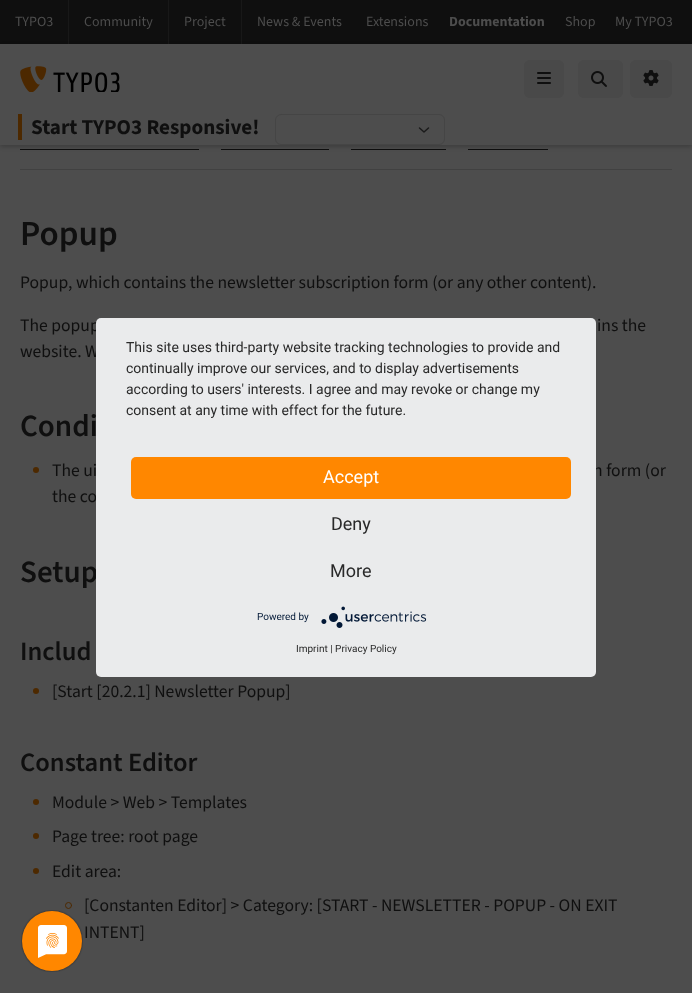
(async () => {
    const canvas = document.querySelector("canvas");
    canvas.width = 692;
    canvas.height = 993;
    const context = canvas.getContext("2d");
    context.miterLimit = 4;
    context.fontKerning = "normal";
    function write(s, x, y, font, color) {
        context.font = font;
        context.fillStyle = color;
        context.fillText(s, x, y);
    }
    function block(x, y, w, h, color) {
        context.fillStyle = color;
        context.fillRect(x, y, w, h);
    }
    function card(x, y, w, h, r, color) {
        context.fillStyle = color;
        context.beginPath();
        context.roundRect(x, y, w, h, r);
        context.fill();
    }
    async function photo(src, x, y, w, h) {
        const img = new Image();
        img.src = src;
        await img.decode();
        context.drawImage(img, x, y, w, h);
    }

    block(0, 0, 692, 993, "rgb(77, 77, 77)");
    block(0, 0, 692, 44, "rgb(15, 15, 15)");
    write("TYPO3", 15, 26, "200 14px 'Source Sans 3'", "rgb(77, 77, 77)");
    block(68, 0, 1, 44, "rgb(24, 24, 24)");
    write("Community", 84, 26, "200 14px 'Source Sans 3'", "rgb(77, 77, 77)");
    block(168, 0, 1, 44, "rgb(24, 24, 24)");
    write("Project", 184, 26, "200 14px 'Source Sans 3'", "rgb(77, 77, 77)");
    block(241, 0, 1, 44, "rgb(24, 24, 24)");
    write("News & Events", 257, 26, "200 14px 'Source Sans 3'", "rgb(77, 77, 77)");
    write("Extensions", 366, 26, "200 14px 'Source Sans 3'", "rgb(77, 77, 77)");
    write("Documentation", 449, 26, "200 14px 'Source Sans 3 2'", "rgb(77, 77, 77)");
    write("Shop", 565, 26, "200 14px 'Source Sans 3'", "rgb(77, 77, 77)");
    write("My TYPO3", 615, 26, "200 14px 'Source Sans 3'", "rgb(77, 77, 77)");
    block(20, 149, 179, 1, "rgb(15, 15, 15)");
    block(221, 149, 108, 1, "rgb(15, 15, 15)");
    block(351, 149, 95, 1, "rgb(15, 15, 15)");
    block(468, 149, 80, 1, "rgb(15, 15, 15)");
    context.save();
    context.beginPath();
    context.moveTo(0, 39);
    context.lineTo(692, 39);
    context.lineTo(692, 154);
    context.lineTo(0, 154);
    context.closePath();
    context.moveTo(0, 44);
    context.lineTo(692, 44);
    context.lineTo(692, 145);
    context.lineTo(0, 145);
    context.closePath();
    context.clip("evenodd");
    context.fillStyle = "rgba(0, 0, 0, 0.2)";
    context.filter = "blur(2px)";
    context.beginPath();
    context.rect(0, 46, 692, 101);
    context.fill();
    context.filter = "none";
    context.restore();
    await photo("media/1.png", 20, 66, 100, 26);
    card(524, 60, 40, 38, 6, "rgb(73, 73, 73)");
    await photo("media/2.png", 537, 72, 14, 12);
    card(578, 60, 45, 38, 6, "rgb(73, 73, 73)");
    await photo("media/3.png", 591, 71, 16, 16);
    card(630, 60, 42, 38, 6, "rgb(73, 73, 73)");
    await photo("media/4.png", 643, 70, 16, 16);
    block(18, 114, 4, 26, "rgb(77, 41, 0)");
    write("Start TYPO3 Responsive!", 31, 134, "200 21.1px 'Source Sans 3 2'", "rgb(15, 15, 15)");
    context.beginPath();
    context.moveTo(419.5, 128);
    context.lineTo(424, 132);
    context.lineTo(428.5, 128);
    context.strokeStyle = "rgb(27, 27, 27)";
    context.lineWidth = 1.5;
    context.lineCap = "round";
    context.lineJoin = "round";
    context.stroke();
    context.beginPath();
    context.roundRect(275.5, 114.5, 169, 30, 5.5);
    context.strokeStyle = "rgb(69, 69, 69)";
    context.lineWidth = 1;
    context.lineJoin = "miter";
    context.stroke();
    block(20, 169, 652, 1, "rgb(65, 65, 65)");
    write("Popup", 20, 245, "600 35px 'Source Sans 3'", "rgb(15, 15, 15)");
    write("Popup, which contains the newsletter subscription form (or any other content).", 20, 288, "200 17.6px 'Source Sans 3'", "rgb(15, 15, 15)");
    write("The popup", 20, 331, "200 17.6px 'Source Sans 3'", "rgb(15, 15, 15)");
    write("ins the", 597, 331, "200 17.6px 'Source Sans 3'", "rgb(15, 15, 15)");
    write("website. W", 20, 357, "200 17.6px 'Source Sans 3'", "rgb(15, 15, 15)");
    write("Condi", 20, 436, "600 31px 'Source Sans 3'", "rgb(15, 15, 15)");
    context.fillStyle = "rgb(77, 41, 0)";
    context.beginPath();
    context.arc(36, 470, 3, 0, Math.PI * 2);
    context.fill();
    write("The ui", 52, 476, "200 17.6px 'Source Sans 3'", "rgb(15, 15, 15)");
    write("n form (or", 593, 476, "200 17.6px 'Source Sans 3'", "rgb(15, 15, 15)");
    write("the co", 52, 502, "200 17.6px 'Source Sans 3'", "rgb(15, 15, 15)");
    write("Setup", 20, 582, "600 31px 'Source Sans 3'", "rgb(15, 15, 15)");
    write("Includ", 20, 660, "600 26.5px 'Source Sans 3'", "rgb(15, 15, 15)");
    context.fillStyle = "rgb(77, 41, 0)";
    context.beginPath();
    context.arc(36, 691, 3, 0, Math.PI * 2);
    context.fill();
    write("[Start [20.2.1] Newsletter Popup]", 52, 697, "200 17.6px 'Source Sans 3'", "rgb(15, 15, 15)");
    write("Constant Editor", 20, 771, "600 26.5px 'Source Sans 3'", "rgb(15, 15, 15)");
    context.fillStyle = "rgb(77, 41, 0)";
    context.beginPath();
    context.arc(36, 802, 3, 0, Math.PI * 2);
    context.fill();
    write("Module > Web > Templates", 52, 808, "200 17.6px 'Source Sans 3'", "rgb(15, 15, 15)");
    context.fillStyle = "rgb(77, 41, 0)";
    context.beginPath();
    context.arc(36, 836, 3, 0, Math.PI * 2);
    context.fill();
    write("Page tree: root page", 52, 842, "200 17.6px 'Source Sans 3'", "rgb(15, 15, 15)");
    context.fillStyle = "rgb(77, 41, 0)";
    context.beginPath();
    context.arc(36, 871, 3, 0, Math.PI * 2);
    context.fill();
    write("Edit area:", 52, 877, "200 17.6px 'Source Sans 3'", "rgb(15, 15, 15)");
    context.beginPath();
    context.arc(68.5, 905.5, 3, 0, Math.PI * 2);
    context.strokeStyle = "rgb(77, 41, 0)";
    context.stroke();
    write("[Constanten Editor] > Category: [START - NEWSLETTER - POPUP - ON EXIT", 84, 911, "200 17.6px 'Source Sans 3'", "rgb(15, 15, 15)");
    write("INTENT]", 84, 938, "200 17.6px 'Source Sans 3'", "rgb(15, 15, 15)");
    context.save();
    context.beginPath();
    context.roundRect(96, 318, 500, 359, 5);
    context.clip();
    context.fillStyle = "rgba(0, 0, 0, 0.3)";
    context.filter = "blur(18px)";
    context.beginPath();
    context.rect(96, 324, 500, 359);
    context.fill();
    context.filter = "none";
    context.restore();
    card(96, 318, 500, 359, 5, "rgb(234, 235, 236)");
    write("This site uses third-party website tracking technologies to provide and", 126, 352, "14px Roboto", "rgb(41, 41, 41)");
    write("continually improve our services, and to display advertisements", 126, 373, "14px Roboto", "rgb(41, 41, 41)");
    write("according to users' interests. I agree and may revoke or change my", 126, 394, "14px Roboto", "rgb(41, 41, 41)");
    write("consent at any time with effect for the future.", 126, 415, "14px Roboto", "rgb(41, 41, 41)");
    card(131, 457, 440, 42, 5, "rgb(255, 135, 0)");
    write("Accept", 323, 483, "18px Roboto", "rgb(255, 255, 255)");
    write("Deny", 331, 530, "18px Roboto", "rgb(41, 41, 41)");
    write("More", 330, 577, "18px Roboto", "rgb(41, 41, 41)");
    write("Powered by", 257, 620, "10px Roboto", "rgb(2, 24, 54)");
    await photo("media/5.png", 321, 606, 106, 22);
    write("Imprint | Privacy Policy", 296, 652, "10px Roboto", "rgb(41, 41, 41)");
    await photo("media/6.png", 21, 910, 62, 62);
})();
